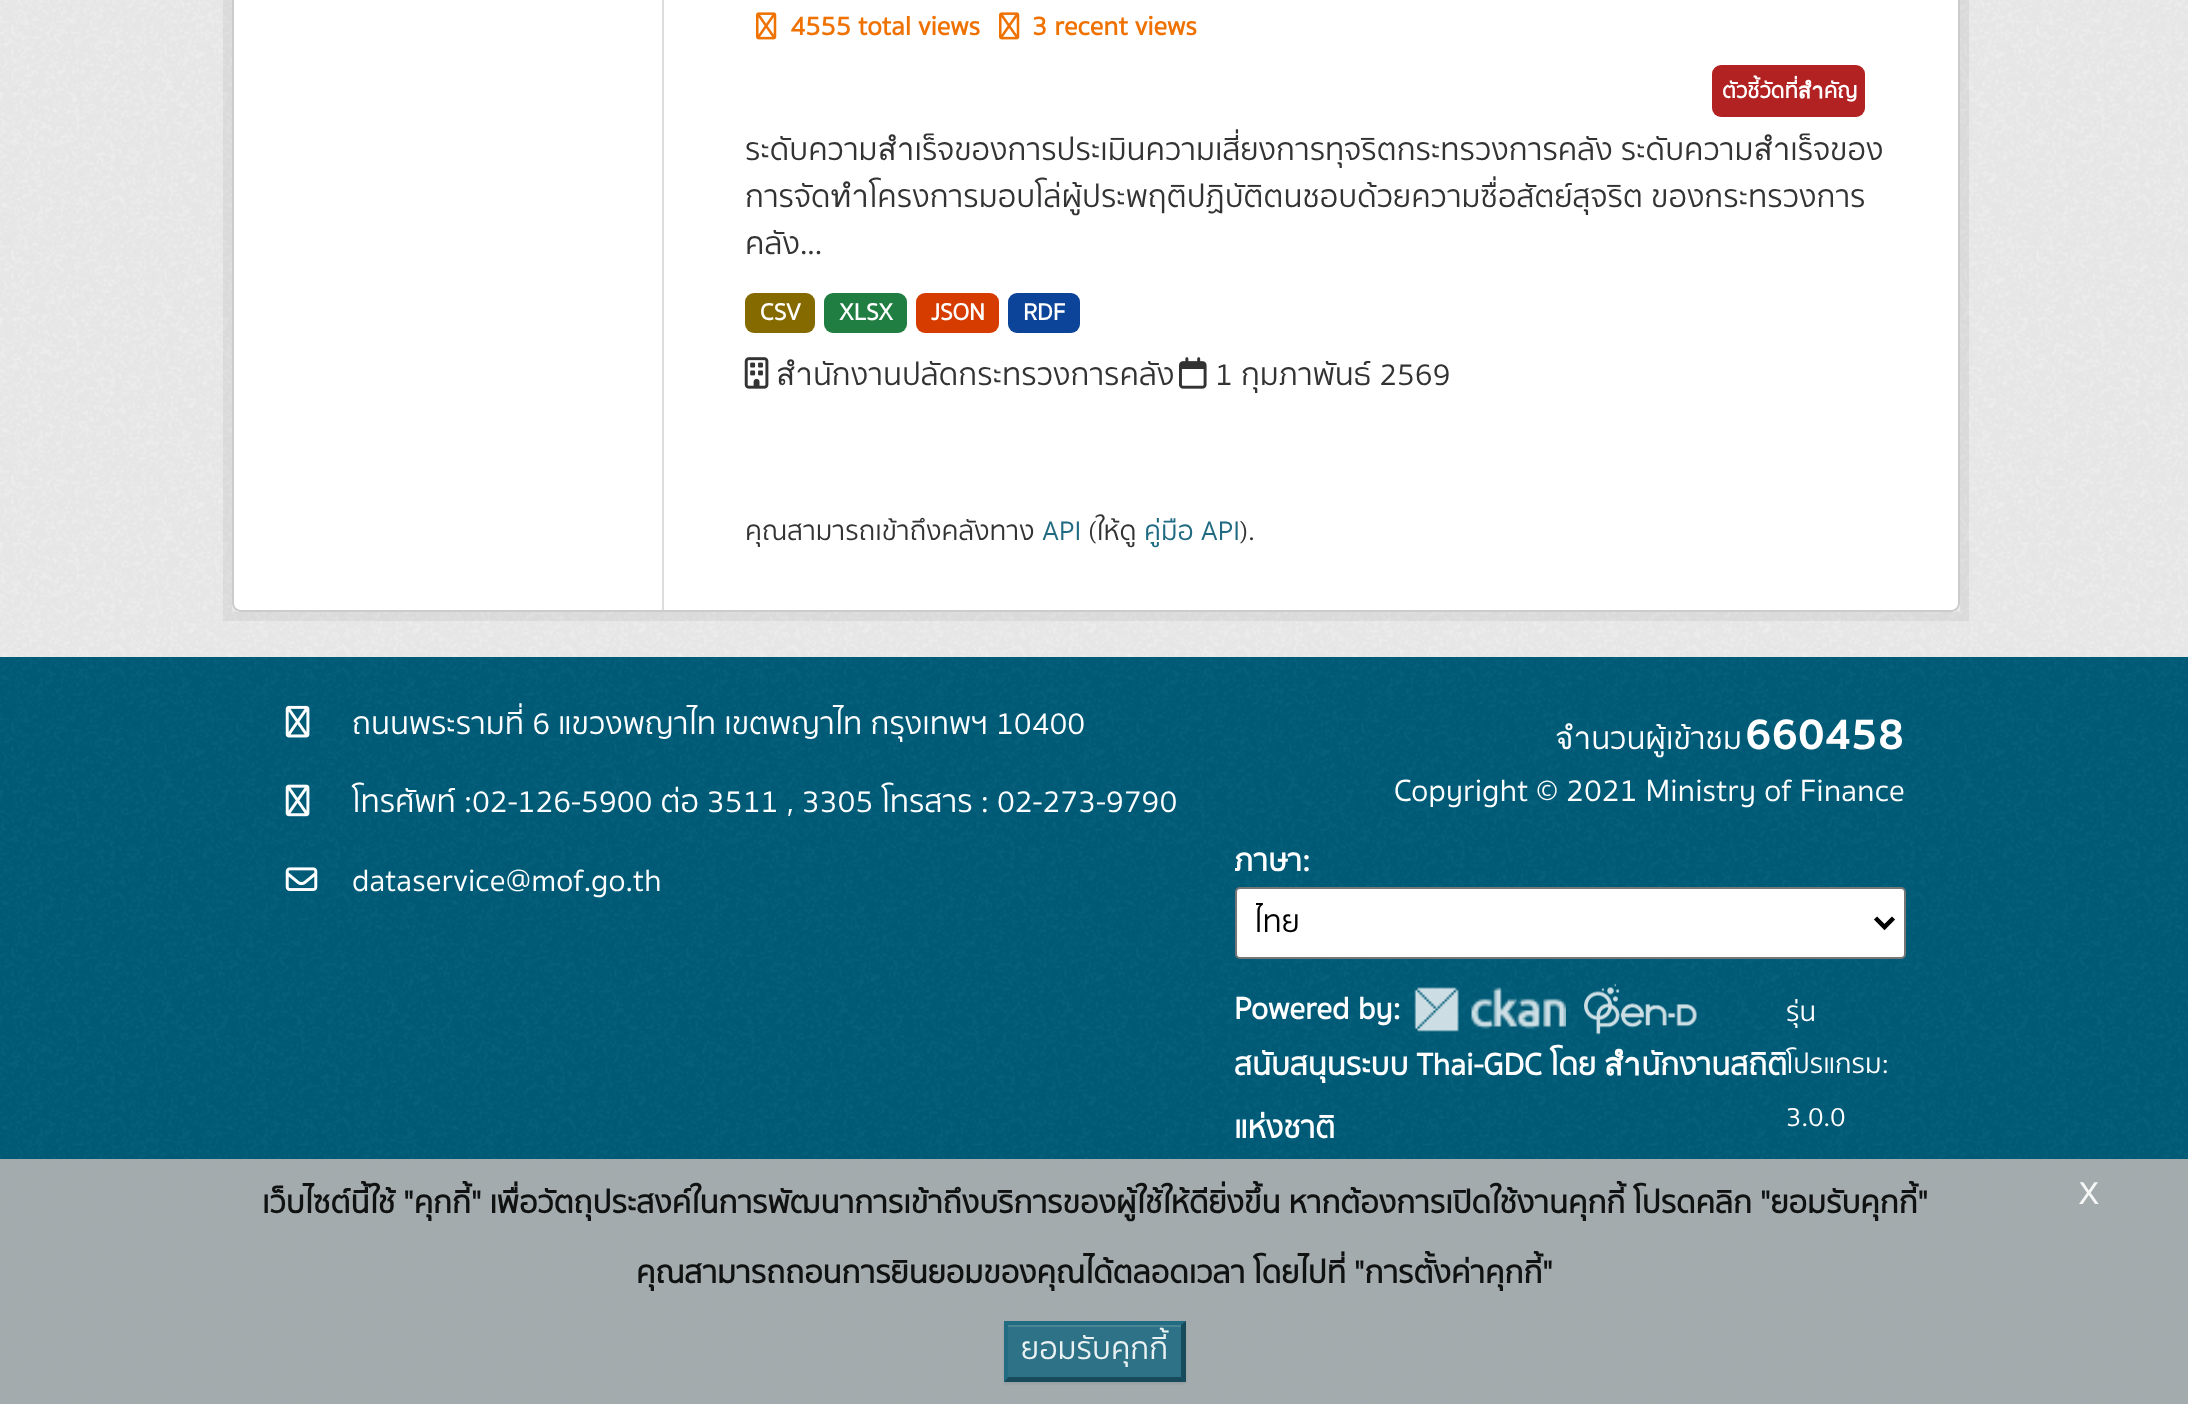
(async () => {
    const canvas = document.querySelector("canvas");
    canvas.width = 2188;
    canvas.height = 1404;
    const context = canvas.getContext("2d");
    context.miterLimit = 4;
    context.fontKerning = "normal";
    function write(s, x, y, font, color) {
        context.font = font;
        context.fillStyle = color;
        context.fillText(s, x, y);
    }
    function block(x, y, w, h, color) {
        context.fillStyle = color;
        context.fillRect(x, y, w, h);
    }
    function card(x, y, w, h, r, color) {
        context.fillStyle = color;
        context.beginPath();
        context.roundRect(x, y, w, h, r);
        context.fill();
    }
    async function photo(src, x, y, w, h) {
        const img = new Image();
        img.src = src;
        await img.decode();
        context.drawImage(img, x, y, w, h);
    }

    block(0, 0, 2188, 1404, "rgb(0, 93, 122)");
    block(0, 0, 2188, 657, "rgb(238, 238, 238)");
    await photo("media/1.png", 0, 0, 2188, 657);
    context.strokeStyle = "rgba(0, 0, 0, 0.05)";
    context.lineWidth = 9;
    context.strokeRect(227.5, -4.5, 1737, 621);
    context.fillStyle = "rgb(255, 255, 255)";
    context.beginPath();
    context.roundRect(233, -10, 1726, 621, 8);
    context.fill();
    context.strokeStyle = "rgb(204, 204, 204)";
    context.lineWidth = 2;
    context.stroke();
    block(662, 0, 2, 610, "rgb(221, 221, 221)");
    await photo("media/2.png", 756, 12, 21, 28);
    write("4555 total views", 790, 35, "bold 27px 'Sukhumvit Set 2'", "rgb(239, 113, 0)");
    await photo("media/2.png", 999, 12, 21, 28);
    write("3 recent views", 1032, 35, "bold 27px 'Sukhumvit Set 2'", "rgb(239, 113, 0)");
    card(1712, 65, 153, 52, 9, "rgb(178, 34, 34)");
    write("ตัวชี้วัดที่สำคัญ", 1722, 98, "bold 22px 'Sukhumvit Set 2'", "rgb(255, 255, 255)");
    write("ระดับความสำเร็จของการประเมินความเสี่ยงการทุจริตกระทรวงการคลัง ระดับความสำเร็จของ", 745, 160, "31.5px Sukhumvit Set", "rgb(51, 51, 51)");
    write("การจัดทำโครงการมอบโล่ผู้ประพฤติปฏิบัติตนชอบด้วยความซื่อสัตย์สุจริต ของกระทรวงการ", 745, 207, "31.5px Sukhumvit Set", "rgb(51, 51, 51)");
    write("คลัง...", 745, 254, "31.5px Sukhumvit Set", "rgb(51, 51, 51)");
    card(745, 293, 70, 40, 9, "rgb(133, 106, 0)");
    write("CSV", 760, 320, "bold 24px 'Sukhumvit Set 2'", "rgb(255, 255, 255)");
    card(824, 293, 83, 40, 9, "rgb(32, 126, 66)");
    write("XLSX", 839, 320, "bold 24px 'Sukhumvit Set 2'", "rgb(255, 255, 255)");
    card(916, 293, 83, 40, 9, "rgb(214, 59, 0)");
    write("JSON", 931, 320, "bold 24px 'Sukhumvit Set 2'", "rgb(255, 255, 255)");
    card(1008, 293, 72, 40, 9, "rgb(11, 68, 152)");
    write("RDF", 1023, 320, "bold 24px 'Sukhumvit Set 2'", "rgb(255, 255, 255)");
    await photo("media/3.png", 744, 357, 25, 32);
    write("สำนักงานปลัดกระทรวงการคลัง", 776, 385, "31.5px Sukhumvit Set", "rgb(51, 51, 51)");
    await photo("media/4.png", 1179, 357, 28, 32);
    write("1 กุมภาพันธ์ 2569", 1215, 385, "31.5px Sukhumvit Set", "rgb(51, 51, 51)");
    write("คุณสามารถเข้าถึงคลังทาง", 745, 540, "27.5px Sukhumvit Set", "rgb(51, 51, 51)");
    write("API", 1042, 540, "27.5px Sukhumvit Set", "rgb(32, 107, 130)");
    write("(ให้ดู", 1088, 540, "27.5px Sukhumvit Set", "rgb(51, 51, 51)");
    write("คู่มือ API", 1144, 540, "27.5px Sukhumvit Set", "rgb(32, 107, 130)");
    write(").", 1240, 540, "27.5px Sukhumvit Set", "rgb(51, 51, 51)");
    await photo("media/5.png", 0, 658, 2188, 746);
    await photo("media/6.png", 285, 705, 25, 33);
    write("ถนนพระรามที่ 6 แขวงพญาไท เขตพญาไท กรุงเทพฯ 10400", 352, 734, "31.5px Sukhumvit Set", "rgb(255, 255, 255)");
    await photo("media/7.png", 285, 784, 25, 33);
    write("โทรศัพท์ :02-126-5900 ต่อ 3511 , 3305 โทรสาร : 02-273-9790", 352, 812, "31.5px Sukhumvit Set", "rgb(255, 255, 255)");
    await photo("media/8.png", 285, 867, 33, 24);
    write("dataservice@mof.go.th", 352, 891, "31.5px Sukhumvit Set", "rgb(255, 255, 255)");
    write("จำนวนผู้เข้าชม", 1555, 749, "31.5px Sukhumvit Set", "rgb(255, 255, 255)");
    write("660458", 1745, 749, "bold 45px Sukhumvit Set", "rgb(255, 255, 255)");
    write("Copyright © 2021 Ministry of Finance", 1394, 801, "31.5px Sukhumvit Set", "rgb(255, 255, 255)");
    write("ภาษา:", 1234, 871, "bold 31.5px 'Sukhumvit Set 2'", "rgb(255, 255, 255)");
    context.beginPath();
    context.roundRect(1236, 888, 669, 70, 4);
    context.fill();
    context.strokeStyle = "rgb(118, 118, 118)";
    context.stroke();
    context.beginPath();
    context.moveTo(1875.5, 918);
    context.lineTo(1884.5, 927);
    context.lineTo(1893.5, 918);
    context.strokeStyle = "rgb(0, 0, 0)";
    context.lineWidth = 4.5;
    context.stroke();
    context.save();
    context.beginPath();
    context.rect(1256, 898, 603, 49);
    context.clip();
    write("ไทย", 1254, 932, "31.5px Sukhumvit Set", "rgb(0, 0, 0)");
    context.restore();
    write("Powered by:", 1234, 1019, "bold 31.5px 'Sukhumvit Set 2'", "rgb(255, 255, 255)");
    await photo("media/9.png", 1414, 987, 152, 45);
    await photo("media/10.png", 1584, 983, 113, 52);
    write("สนับสนุนระบบ Thai-GDC โดย สำนักงานสถิติ", 1234, 1075, "bold 31.5px 'Sukhumvit Set 2'", "rgb(255, 255, 255)");
    write("แห่งชาติ", 1234, 1138, "bold 31.5px 'Sukhumvit Set 2'", "rgb(255, 255, 255)");
    write("รุ่น", 1786, 1021, "27.5px Sukhumvit Set", "rgb(255, 255, 255)");
    write("โปรแกรม:", 1786, 1073, "27.5px Sukhumvit Set", "rgb(255, 255, 255)");
    write("3.0.0", 1786, 1126, "27.5px Sukhumvit Set", "rgb(255, 255, 255)");
    block(0, 1159, 2188, 245, "rgba(181, 180, 180, 0.9)");
    write("เว็บไซต์นี้ใช้ \"คุกกี้\" เพื่อวัตถุประสงค์ในการพัฒนาการเข้าถึงบริการของผู้ใช้ให้ดียิ่งขึ้น หากต้องการเปิดใช้งานคุกกี้ โปรดคลิก \"ยอมรับคุกกี้\"", 262, 1213, "bold 31.5px 'Sukhumvit Set 2'", "rgb(16, 17, 17)");
    write("x", 2078, 1204, "45px Sukhumvit Set", "rgb(246, 247, 247)");
    write("คุณสามารถถอนการยินยอมของคุณได้ตลอดเวลา โดยไปที่ \"การตั้งค่าคุกกี้\"", 636, 1283, "bold 31.5px 'Sukhumvit Set 2'", "rgb(16, 17, 17)");
    context.save();
    context.beginPath();
    context.moveTo(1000, 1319);
    context.lineTo(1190, 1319);
    context.lineTo(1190, 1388);
    context.lineTo(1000, 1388);
    context.closePath();
    context.moveTo(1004, 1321);
    context.lineTo(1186, 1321);
    context.lineTo(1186, 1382);
    context.lineTo(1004, 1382);
    context.closePath();
    context.clip("evenodd");
    context.fillStyle = "rgba(0, 0, 0, 0.07)";
    context.filter = "blur(1px)";
    context.beginPath();
    context.rect(1004, 1323, 182, 61);
    context.fill();
    context.filter = "none";
    context.restore();
    block(1004, 1321, 182, 61, "rgba(32, 107, 130, 0.9)");
    block(1008, 1325, 173, 2, "rgb(73, 133, 151)");
    context.fillStyle = "rgb(33, 108, 130)";
    context.beginPath();
    context.moveTo(1004, 1321);
    context.lineTo(1186, 1321);
    context.lineTo(1181, 1325);
    context.lineTo(1008, 1325);
    context.closePath();
    context.fill();
    context.fillStyle = "rgba(21, 71, 87, 0.9)";
    context.beginPath();
    context.moveTo(1186, 1321);
    context.lineTo(1186, 1382);
    context.lineTo(1181, 1377);
    context.lineTo(1181, 1325);
    context.closePath();
    context.fill();
    context.beginPath();
    context.moveTo(1186, 1382);
    context.lineTo(1004, 1382);
    context.lineTo(1008, 1377);
    context.lineTo(1181, 1377);
    context.closePath();
    context.fill();
    context.fillStyle = "rgba(32, 107, 130, 0.9)";
    context.beginPath();
    context.moveTo(1004, 1382);
    context.lineTo(1004, 1321);
    context.lineTo(1008, 1325);
    context.lineTo(1008, 1377);
    context.closePath();
    context.fill();
    write("ยอมรับคุกกี้", 1021, 1359, "31.5px Sukhumvit Set", "rgb(234, 241, 243)");
})();
